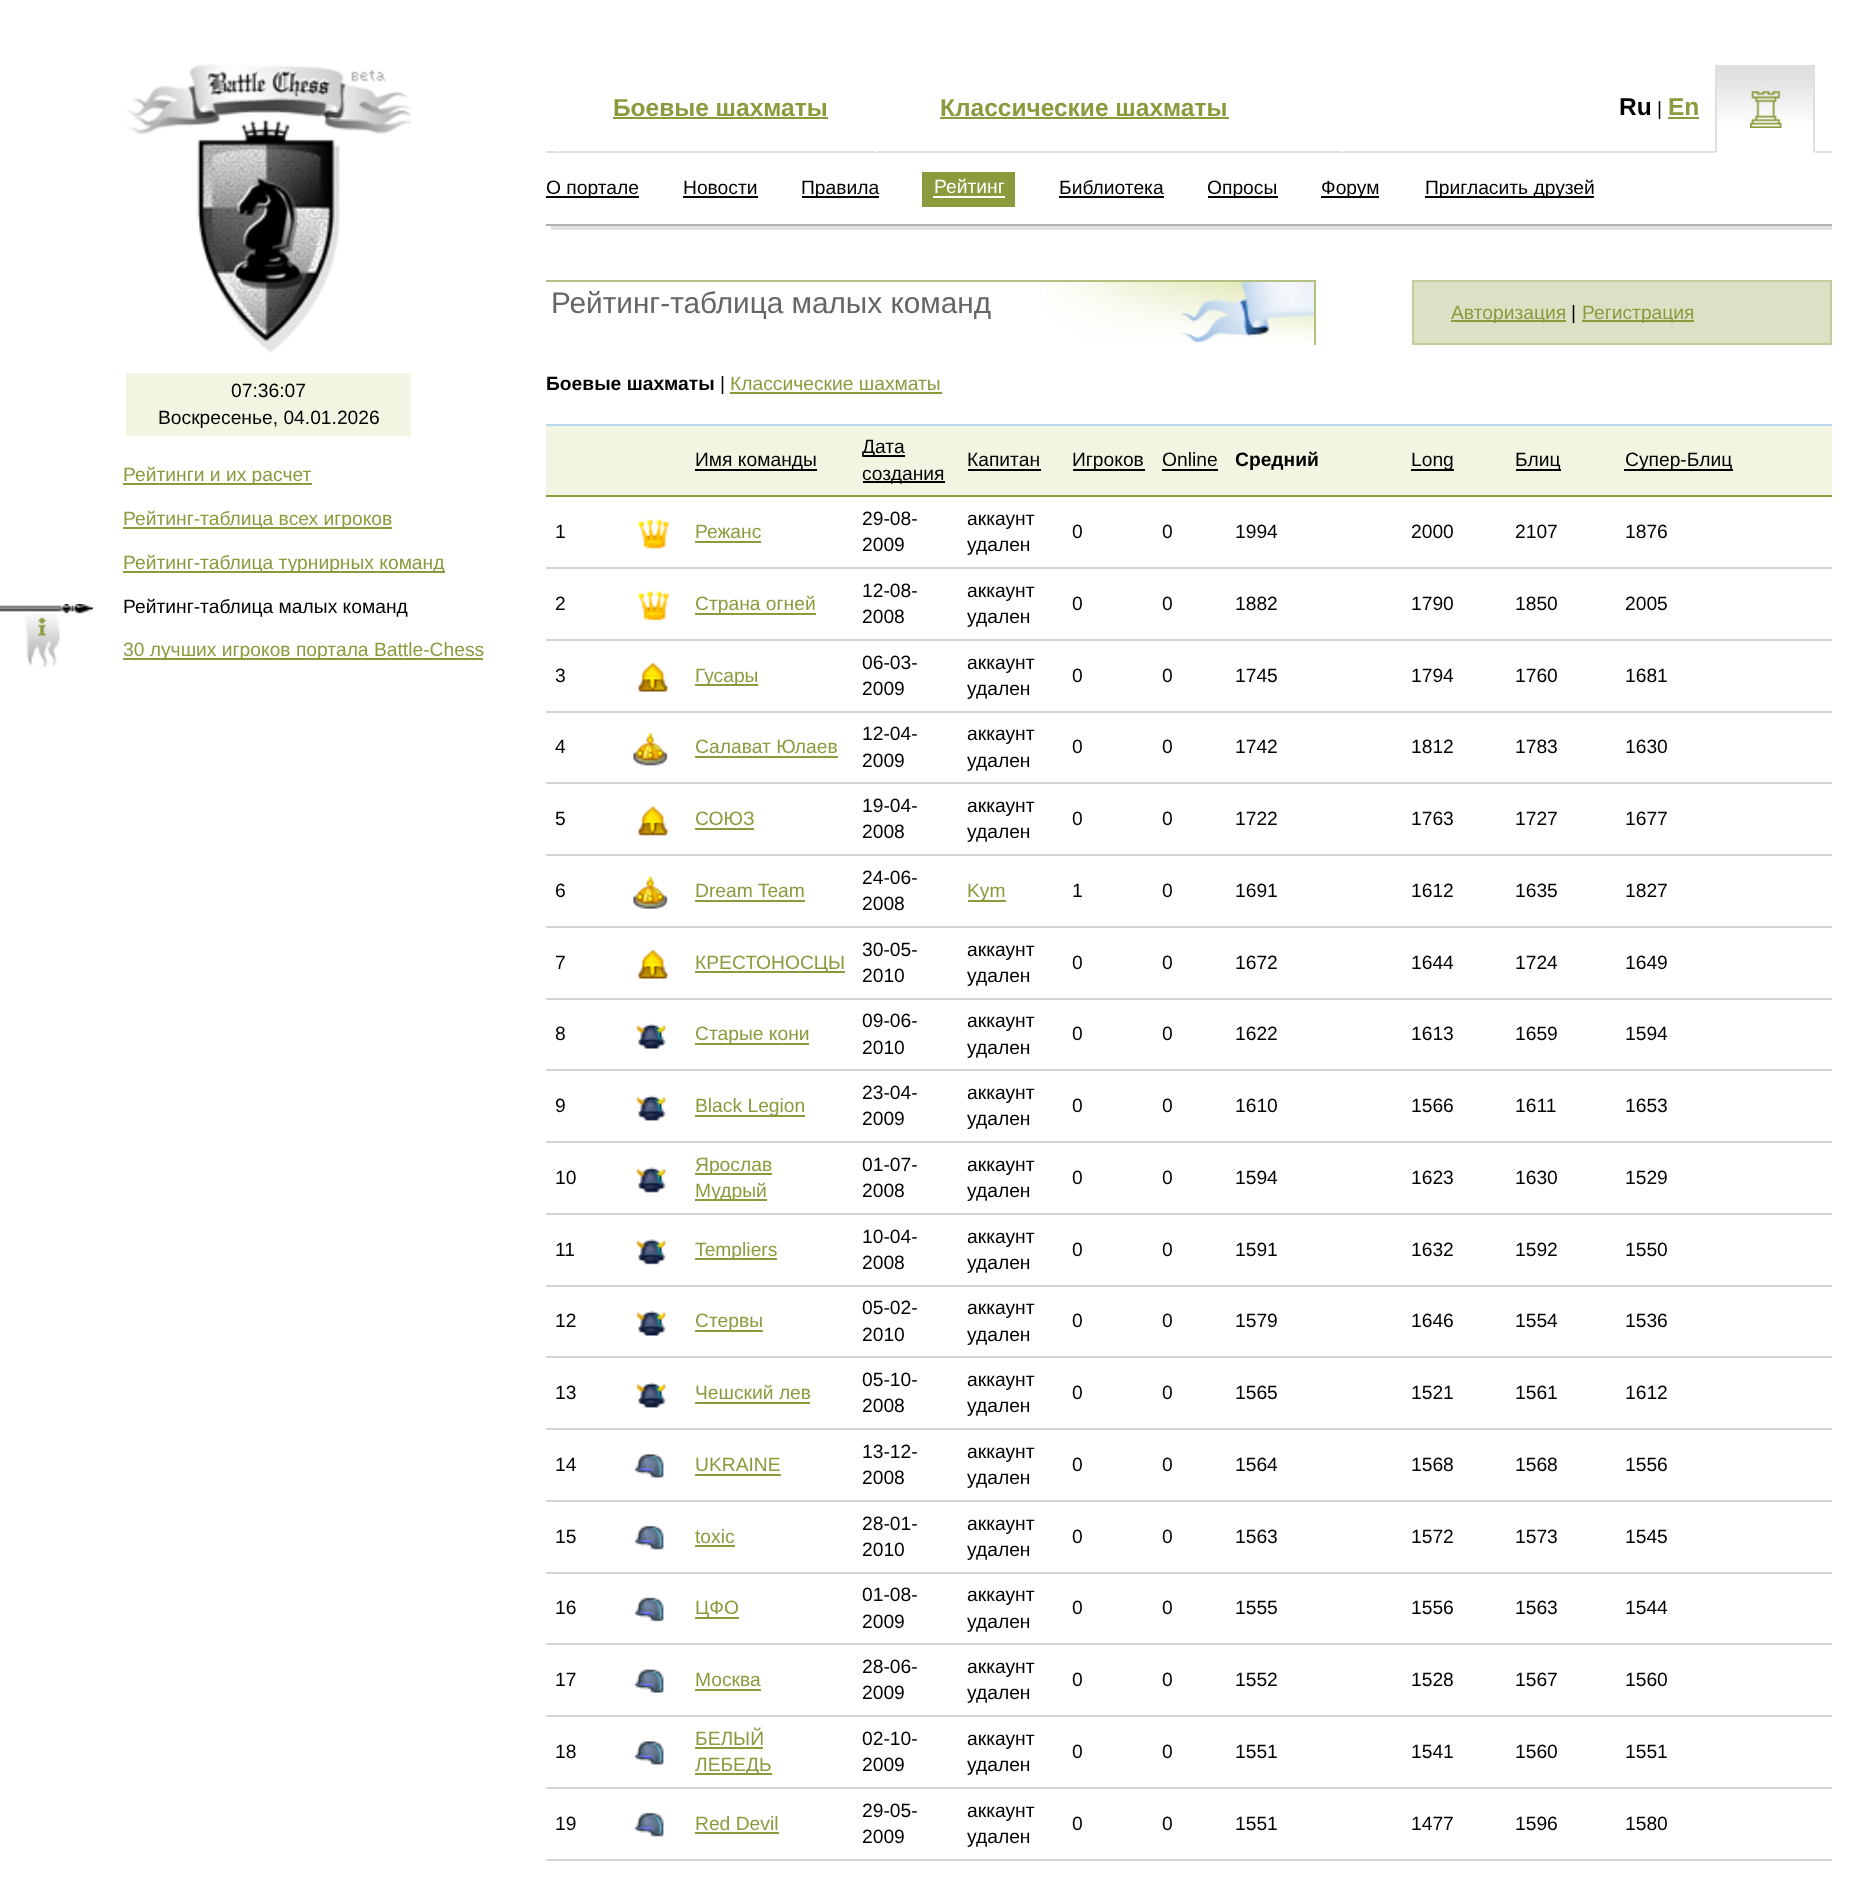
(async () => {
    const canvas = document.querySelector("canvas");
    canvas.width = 1874;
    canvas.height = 1880;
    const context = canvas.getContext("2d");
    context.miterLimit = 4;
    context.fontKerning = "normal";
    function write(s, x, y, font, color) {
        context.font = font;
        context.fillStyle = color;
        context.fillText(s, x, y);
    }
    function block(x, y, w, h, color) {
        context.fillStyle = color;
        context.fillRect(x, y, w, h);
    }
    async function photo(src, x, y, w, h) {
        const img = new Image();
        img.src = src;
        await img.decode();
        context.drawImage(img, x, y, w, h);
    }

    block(0, 0, 1874, 1880, "rgb(255, 255, 255)");
    await photo("media/1.png", 126, 64, 286, 289);
    block(126, 373, 285, 63, "rgb(242, 245, 225)");
    write("07:36:07", 231, 397, "19.25px Liberation Sans", "rgb(0, 0, 0)");
    write("Воскресенье, 04.01.2026", 158, 424, "19.25px Liberation Sans", "rgb(0, 0, 0)");
    block(123, 483, 189, 2, "rgb(140, 154, 62)");
    write("Рейтинги и их расчет", 123, 481, "19.25px Liberation Sans", "rgb(140, 154, 62)");
    block(123, 527, 269, 2, "rgb(140, 154, 62)");
    write("Рейтинг-таблица всех игроков", 123, 525, "19.25px Liberation Sans", "rgb(140, 154, 62)");
    block(123, 571, 322, 2, "rgb(140, 154, 62)");
    write("Рейтинг-таблица турнирных команд", 123, 569, "19.25px Liberation Sans", "rgb(140, 154, 62)");
    await photo("media/2.png", 0, 604, 93, 63);
    write("Рейтинг-таблица малых команд", 123, 613, "19.25px Liberation Sans", "rgb(0, 0, 0)");
    block(123, 658, 360, 2, "rgb(140, 154, 62)");
    write("30 лучших игроков портала Battle-Chess", 123, 656, "19.25px Liberation Sans", "rgb(140, 154, 62)");
    block(546, 151, 1169, 2, "rgb(223, 223, 223)");
    context.beginPath();
    context.moveTo(557.5, 65);
    context.lineTo(557.5, 152);
    context.strokeStyle = "rgb(255, 255, 255)";
    context.lineWidth = 1.8;
    context.setLineDash([5.25, 3.89]);
    context.stroke();
    write("Боевые шахматы", 613, 116, "bold 24.5px Liberation Sans", "rgb(140, 154, 62)");
    block(613, 117, 215, 2, "rgb(140, 154, 62)");
    context.beginPath();
    context.moveTo(876, 65);
    context.lineTo(876, 152);
    context.stroke();
    write("Классические шахматы", 940, 116, "bold 24.5px Liberation Sans", "rgb(140, 154, 62)");
    block(940, 117, 289, 2, "rgb(140, 154, 62)");
    context.beginPath();
    context.moveTo(1343, 65);
    context.lineTo(1343, 152);
    context.stroke();
    write("Ru", 1619, 115, "bold 24.5px Liberation Sans", "rgb(0, 0, 0)");
    write("|", 1657, 115, "19.25px Liberation Sans", "rgb(0, 0, 0)");
    write("En", 1668, 115, "bold 24.5px Liberation Sans", "rgb(140, 154, 62)");
    block(1668, 117, 31, 2, "rgb(140, 154, 62)");
    await photo("media/3.png", 1717, 65, 96, 56);
    block(1813, 65, 2, 87, "rgb(223, 223, 223)");
    block(1715, 65, 2, 87, "rgb(223, 223, 223)");
    await photo("media/4.png", 1750, 91, 32, 37);
    block(1815, 151, 17, 2, "rgb(223, 223, 223)");
    block(546, 224, 1286, 2, "rgb(177, 177, 177)");
    block(546, 196, 93, 2, "rgb(0, 0, 0)");
    write("О портале", 546, 194, "19.25px Liberation Sans", "rgb(0, 0, 0)");
    write("Новости", 683, 194, "19.25px Liberation Sans", "rgb(0, 0, 0)");
    block(683, 196, 75, 2, "rgb(0, 0, 0)");
    block(802, 196, 77, 2, "rgb(0, 0, 0)");
    write("Правила", 801, 194, "19.25px Liberation Sans", "rgb(0, 0, 0)");
    block(922, 172, 93, 35, "rgb(140, 154, 62)");
    write("Рейтинг", 934, 193, "19.25px Liberation Sans", "rgb(255, 255, 255)");
    block(933, 196, 72, 2, "rgb(255, 255, 255)");
    write("Библиотека", 1059, 194, "19.25px Liberation Sans", "rgb(0, 0, 0)");
    block(1059, 196, 105, 2, "rgb(0, 0, 0)");
    block(1208, 196, 70, 2, "rgb(0, 0, 0)");
    write("Опросы", 1207, 194, "19.25px Liberation Sans", "rgb(0, 0, 0)");
    block(1321, 196, 58, 2, "rgb(0, 0, 0)");
    write("Форум", 1321, 194, "19.25px Liberation Sans", "rgb(0, 0, 0)");
    block(1425, 196, 169, 2, "rgb(0, 0, 0)");
    write("Пригласить друзей", 1425, 194, "19.25px Liberation Sans", "rgb(0, 0, 0)");
    block(551, 226, 1281, 4, "rgb(223, 223, 223)");
    await photo("media/5.png", 1045, 282, 269, 62);
    block(546, 280, 770, 2, "rgb(182, 191, 130)");
    block(1314, 280, 2, 65, "rgb(182, 191, 130)");
    write("Рейтинг-таблица малых команд", 551, 313, "29.75px Liberation Sans", "rgb(102, 102, 102)");
    context.fillStyle = "rgb(220, 225, 197)";
    context.beginPath();
    context.rect(1413, 281, 418, 63);
    context.fill();
    context.strokeStyle = "rgb(196, 203, 156)";
    context.lineWidth = 2;
    context.setLineDash([]);
    context.stroke();
    block(1451, 320, 115, 2, "rgb(140, 154, 62)");
    write("Авторизация", 1451, 319, "19.25px Liberation Sans", "rgb(140, 154, 62)");
    write("|", 1571, 319, "19.25px Liberation Sans", "rgb(0, 0, 0)");
    block(1582, 320, 112, 2, "rgb(140, 154, 62)");
    write("Регистрация", 1582, 319, "19.25px Liberation Sans", "rgb(140, 154, 62)");
    write("Боевые шахматы", 546, 390, "bold 19.25px Liberation Sans", "rgb(0, 0, 0)");
    write("|", 720, 390, "19.25px Liberation Sans", "rgb(0, 0, 0)");
    write("Классические шахматы", 730, 390, "19.25px Liberation Sans", "rgb(140, 154, 62)");
    block(730, 392, 212, 2, "rgb(140, 154, 62)");
    block(546, 426, 1286, 69, "rgb(242, 245, 225)");
    block(546, 424, 1286, 2, "rgb(185, 216, 238)");
    block(546, 495, 1286, 2, "rgb(140, 154, 62)");
    block(695, 469, 122, 2, "rgb(0, 0, 0)");
    write("Имя команды", 695, 466, "19.25px Liberation Sans", "rgb(0, 0, 0)");
    block(863, 455, 42, 2, "rgb(0, 0, 0)");
    write("Дата", 862, 453, "19.25px Liberation Sans", "rgb(0, 0, 0)");
    block(863, 481, 82, 2, "rgb(0, 0, 0)");
    write("создания", 862, 480, "19.25px Liberation Sans", "rgb(0, 0, 0)");
    write("Капитан", 967, 466, "19.25px Liberation Sans", "rgb(0, 0, 0)");
    block(968, 469, 73, 2, "rgb(0, 0, 0)");
    block(1073, 469, 72, 2, "rgb(0, 0, 0)");
    write("Игроков", 1072, 466, "19.25px Liberation Sans", "rgb(0, 0, 0)");
    write("Online", 1162, 466, "19.25px Liberation Sans", "rgb(0, 0, 0)");
    block(1162, 469, 56, 2, "rgb(0, 0, 0)");
    write("Средний", 1235, 466, "bold 19.25px Liberation Sans", "rgb(0, 0, 0)");
    block(1411, 469, 43, 2, "rgb(0, 0, 0)");
    write("Long", 1411, 466, "19.25px Liberation Sans", "rgb(0, 0, 0)");
    block(1516, 469, 45, 2, "rgb(0, 0, 0)");
    write("Блиц", 1515, 466, "19.25px Liberation Sans", "rgb(0, 0, 0)");
    block(1624, 469, 109, 2, "rgb(0, 0, 0)");
    write("Супер-Блиц", 1625, 466, "19.25px Liberation Sans", "rgb(0, 0, 0)");
    block(546, 567, 1286, 2, "rgb(211, 211, 211)");
    write("1", 555, 538, "19.25px Liberation Sans", "rgb(0, 0, 0)");
    await photo("media/6.png", 637, 519, 32, 30);
    write("Режанс", 695, 538, "19.25px Liberation Sans", "rgb(140, 154, 62)");
    block(695, 541, 66, 2, "rgb(140, 154, 62)");
    write("29-08-", 862, 525, "19.25px Liberation Sans", "rgb(0, 0, 0)");
    write("2009", 862, 551, "19.25px Liberation Sans", "rgb(0, 0, 0)");
    write("аккаунт", 967, 525, "19.25px Liberation Sans", "rgb(0, 0, 0)");
    write("удален", 967, 551, "19.25px Liberation Sans", "rgb(0, 0, 0)");
    write("0", 1072, 538, "19.25px Liberation Sans", "rgb(0, 0, 0)");
    write("0", 1162, 538, "19.25px Liberation Sans", "rgb(0, 0, 0)");
    write("1994", 1235, 538, "19.25px Liberation Sans", "rgb(0, 0, 0)");
    write("2000", 1411, 538, "19.25px Liberation Sans", "rgb(0, 0, 0)");
    write("2107", 1515, 538, "19.25px Liberation Sans", "rgb(0, 0, 0)");
    write("1876", 1625, 538, "19.25px Liberation Sans", "rgb(0, 0, 0)");
    block(546, 639, 1286, 2, "rgb(211, 211, 211)");
    write("2", 555, 610, "19.25px Liberation Sans", "rgb(0, 0, 0)");
    await photo("media/7.png", 637, 591, 32, 30);
    block(695, 613, 121, 2, "rgb(140, 154, 62)");
    write("Страна огней", 695, 610, "19.25px Liberation Sans", "rgb(140, 154, 62)");
    write("12-08-", 862, 597, "19.25px Liberation Sans", "rgb(0, 0, 0)");
    write("2008", 862, 623, "19.25px Liberation Sans", "rgb(0, 0, 0)");
    write("аккаунт", 967, 597, "19.25px Liberation Sans", "rgb(0, 0, 0)");
    write("удален", 967, 623, "19.25px Liberation Sans", "rgb(0, 0, 0)");
    write("0", 1072, 610, "19.25px Liberation Sans", "rgb(0, 0, 0)");
    write("0", 1162, 610, "19.25px Liberation Sans", "rgb(0, 0, 0)");
    write("1882", 1235, 610, "19.25px Liberation Sans", "rgb(0, 0, 0)");
    write("1790", 1411, 610, "19.25px Liberation Sans", "rgb(0, 0, 0)");
    write("1850", 1515, 610, "19.25px Liberation Sans", "rgb(0, 0, 0)");
    write("2005", 1625, 610, "19.25px Liberation Sans", "rgb(0, 0, 0)");
    block(546, 711, 1286, 2, "rgb(211, 211, 211)");
    write("3", 555, 682, "19.25px Liberation Sans", "rgb(0, 0, 0)");
    await photo("media/8.png", 638, 661, 31, 31);
    block(695, 684, 63, 2, "rgb(140, 154, 62)");
    write("Гусары", 695, 682, "19.25px Liberation Sans", "rgb(140, 154, 62)");
    write("06-03-", 862, 669, "19.25px Liberation Sans", "rgb(0, 0, 0)");
    write("2009", 862, 695, "19.25px Liberation Sans", "rgb(0, 0, 0)");
    write("аккаунт", 967, 669, "19.25px Liberation Sans", "rgb(0, 0, 0)");
    write("удален", 967, 695, "19.25px Liberation Sans", "rgb(0, 0, 0)");
    write("0", 1072, 682, "19.25px Liberation Sans", "rgb(0, 0, 0)");
    write("0", 1162, 682, "19.25px Liberation Sans", "rgb(0, 0, 0)");
    write("1745", 1235, 682, "19.25px Liberation Sans", "rgb(0, 0, 0)");
    write("1794", 1411, 682, "19.25px Liberation Sans", "rgb(0, 0, 0)");
    write("1760", 1515, 682, "19.25px Liberation Sans", "rgb(0, 0, 0)");
    write("1681", 1625, 682, "19.25px Liberation Sans", "rgb(0, 0, 0)");
    block(546, 782, 1286, 2, "rgb(211, 211, 211)");
    write("4", 555, 753, "19.25px Liberation Sans", "rgb(0, 0, 0)");
    await photo("media/9.png", 633, 733, 35, 33);
    write("Салават Юлаев", 695, 753, "19.25px Liberation Sans", "rgb(140, 154, 62)");
    block(695, 756, 143, 2, "rgb(140, 154, 62)");
    write("12-04-", 862, 740, "19.25px Liberation Sans", "rgb(0, 0, 0)");
    write("2009", 862, 767, "19.25px Liberation Sans", "rgb(0, 0, 0)");
    write("аккаунт", 967, 740, "19.25px Liberation Sans", "rgb(0, 0, 0)");
    write("удален", 967, 767, "19.25px Liberation Sans", "rgb(0, 0, 0)");
    write("0", 1072, 753, "19.25px Liberation Sans", "rgb(0, 0, 0)");
    write("0", 1162, 753, "19.25px Liberation Sans", "rgb(0, 0, 0)");
    write("1742", 1235, 753, "19.25px Liberation Sans", "rgb(0, 0, 0)");
    write("1812", 1411, 753, "19.25px Liberation Sans", "rgb(0, 0, 0)");
    write("1783", 1515, 753, "19.25px Liberation Sans", "rgb(0, 0, 0)");
    write("1630", 1625, 753, "19.25px Liberation Sans", "rgb(0, 0, 0)");
    block(546, 854, 1286, 2, "rgb(211, 211, 211)");
    write("5", 555, 825, "19.25px Liberation Sans", "rgb(0, 0, 0)");
    await photo("media/10.png", 638, 805, 31, 31);
    write("СОЮЗ", 695, 825, "19.25px Liberation Sans", "rgb(140, 154, 62)");
    block(695, 828, 59, 2, "rgb(140, 154, 62)");
    write("19-04-", 862, 812, "19.25px Liberation Sans", "rgb(0, 0, 0)");
    write("2008", 862, 838, "19.25px Liberation Sans", "rgb(0, 0, 0)");
    write("аккаунт", 967, 812, "19.25px Liberation Sans", "rgb(0, 0, 0)");
    write("удален", 967, 838, "19.25px Liberation Sans", "rgb(0, 0, 0)");
    write("0", 1072, 825, "19.25px Liberation Sans", "rgb(0, 0, 0)");
    write("0", 1162, 825, "19.25px Liberation Sans", "rgb(0, 0, 0)");
    write("1722", 1235, 825, "19.25px Liberation Sans", "rgb(0, 0, 0)");
    write("1763", 1411, 825, "19.25px Liberation Sans", "rgb(0, 0, 0)");
    write("1727", 1515, 825, "19.25px Liberation Sans", "rgb(0, 0, 0)");
    write("1677", 1625, 825, "19.25px Liberation Sans", "rgb(0, 0, 0)");
    block(546, 926, 1286, 2, "rgb(211, 211, 211)");
    write("6", 555, 897, "19.25px Liberation Sans", "rgb(0, 0, 0)");
    await photo("media/11.png", 633, 876, 35, 33);
    write("Dream Team", 695, 897, "19.25px Liberation Sans", "rgb(140, 154, 62)");
    block(695, 900, 110, 2, "rgb(140, 154, 62)");
    write("24-06-", 862, 884, "19.25px Liberation Sans", "rgb(0, 0, 0)");
    write("2008", 862, 910, "19.25px Liberation Sans", "rgb(0, 0, 0)");
    block(968, 900, 38, 2, "rgb(140, 154, 62)");
    write("Kym", 967, 897, "19.25px Liberation Sans", "rgb(140, 154, 62)");
    write("1", 1072, 897, "19.25px Liberation Sans", "rgb(0, 0, 0)");
    write("0", 1162, 897, "19.25px Liberation Sans", "rgb(0, 0, 0)");
    write("1691", 1235, 897, "19.25px Liberation Sans", "rgb(0, 0, 0)");
    write("1612", 1411, 897, "19.25px Liberation Sans", "rgb(0, 0, 0)");
    write("1635", 1515, 897, "19.25px Liberation Sans", "rgb(0, 0, 0)");
    write("1827", 1625, 897, "19.25px Liberation Sans", "rgb(0, 0, 0)");
    block(546, 998, 1286, 2, "rgb(211, 211, 211)");
    write("7", 555, 969, "19.25px Liberation Sans", "rgb(0, 0, 0)");
    await photo("media/8.png", 638, 948, 31, 31);
    block(695, 971, 150, 2, "rgb(140, 154, 62)");
    write("КРЕСТОНОСЦЫ", 695, 969, "19.25px Liberation Sans", "rgb(140, 154, 62)");
    write("30-05-", 862, 956, "19.25px Liberation Sans", "rgb(0, 0, 0)");
    write("2010", 862, 982, "19.25px Liberation Sans", "rgb(0, 0, 0)");
    write("аккаунт", 967, 956, "19.25px Liberation Sans", "rgb(0, 0, 0)");
    write("удален", 967, 982, "19.25px Liberation Sans", "rgb(0, 0, 0)");
    write("0", 1072, 969, "19.25px Liberation Sans", "rgb(0, 0, 0)");
    write("0", 1162, 969, "19.25px Liberation Sans", "rgb(0, 0, 0)");
    write("1672", 1235, 969, "19.25px Liberation Sans", "rgb(0, 0, 0)");
    write("1644", 1411, 969, "19.25px Liberation Sans", "rgb(0, 0, 0)");
    write("1724", 1515, 969, "19.25px Liberation Sans", "rgb(0, 0, 0)");
    write("1649", 1625, 969, "19.25px Liberation Sans", "rgb(0, 0, 0)");
    block(546, 1069, 1286, 2, "rgb(211, 211, 211)");
    write("8", 555, 1040, "19.25px Liberation Sans", "rgb(0, 0, 0)");
    await photo("media/12.png", 636, 1023, 30, 26);
    block(695, 1043, 114, 2, "rgb(140, 154, 62)");
    write("Старые кони", 695, 1040, "19.25px Liberation Sans", "rgb(140, 154, 62)");
    write("09-06-", 862, 1027, "19.25px Liberation Sans", "rgb(0, 0, 0)");
    write("2010", 862, 1054, "19.25px Liberation Sans", "rgb(0, 0, 0)");
    write("аккаунт", 967, 1027, "19.25px Liberation Sans", "rgb(0, 0, 0)");
    write("удален", 967, 1054, "19.25px Liberation Sans", "rgb(0, 0, 0)");
    write("0", 1072, 1040, "19.25px Liberation Sans", "rgb(0, 0, 0)");
    write("0", 1162, 1040, "19.25px Liberation Sans", "rgb(0, 0, 0)");
    write("1622", 1235, 1040, "19.25px Liberation Sans", "rgb(0, 0, 0)");
    write("1613", 1411, 1040, "19.25px Liberation Sans", "rgb(0, 0, 0)");
    write("1659", 1515, 1040, "19.25px Liberation Sans", "rgb(0, 0, 0)");
    write("1594", 1625, 1040, "19.25px Liberation Sans", "rgb(0, 0, 0)");
    block(546, 1141, 1286, 2, "rgb(211, 211, 211)");
    write("9", 555, 1112, "19.25px Liberation Sans", "rgb(0, 0, 0)");
    await photo("media/13.png", 636, 1095, 30, 26);
    block(695, 1115, 110, 2, "rgb(140, 154, 62)");
    write("Black Legion", 695, 1112, "19.25px Liberation Sans", "rgb(140, 154, 62)");
    write("23-04-", 862, 1099, "19.25px Liberation Sans", "rgb(0, 0, 0)");
    write("2009", 862, 1125, "19.25px Liberation Sans", "rgb(0, 0, 0)");
    write("аккаунт", 967, 1099, "19.25px Liberation Sans", "rgb(0, 0, 0)");
    write("удален", 967, 1125, "19.25px Liberation Sans", "rgb(0, 0, 0)");
    write("0", 1072, 1112, "19.25px Liberation Sans", "rgb(0, 0, 0)");
    write("0", 1162, 1112, "19.25px Liberation Sans", "rgb(0, 0, 0)");
    write("1610", 1235, 1112, "19.25px Liberation Sans", "rgb(0, 0, 0)");
    write("1566", 1411, 1112, "19.25px Liberation Sans", "rgb(0, 0, 0)");
    write("1611", 1515, 1112, "19.25px Liberation Sans", "rgb(0, 0, 0)");
    write("1653", 1625, 1112, "19.25px Liberation Sans", "rgb(0, 0, 0)");
    block(546, 1213, 1286, 2, "rgb(211, 211, 211)");
    write("10", 555, 1184, "19.25px Liberation Sans", "rgb(0, 0, 0)");
    await photo("media/14.png", 636, 1167, 30, 26);
    block(695, 1173, 77, 2, "rgb(140, 154, 62)");
    write("Ярослав", 695, 1171, "19.25px Liberation Sans", "rgb(140, 154, 62)");
    block(695, 1199, 72, 2, "rgb(140, 154, 62)");
    write("Мудрый", 695, 1197, "19.25px Liberation Sans", "rgb(140, 154, 62)");
    write("01-07-", 862, 1171, "19.25px Liberation Sans", "rgb(0, 0, 0)");
    write("2008", 862, 1197, "19.25px Liberation Sans", "rgb(0, 0, 0)");
    write("аккаунт", 967, 1171, "19.25px Liberation Sans", "rgb(0, 0, 0)");
    write("удален", 967, 1197, "19.25px Liberation Sans", "rgb(0, 0, 0)");
    write("0", 1072, 1184, "19.25px Liberation Sans", "rgb(0, 0, 0)");
    write("0", 1162, 1184, "19.25px Liberation Sans", "rgb(0, 0, 0)");
    write("1594", 1235, 1184, "19.25px Liberation Sans", "rgb(0, 0, 0)");
    write("1623", 1411, 1184, "19.25px Liberation Sans", "rgb(0, 0, 0)");
    write("1630", 1515, 1184, "19.25px Liberation Sans", "rgb(0, 0, 0)");
    write("1529", 1625, 1184, "19.25px Liberation Sans", "rgb(0, 0, 0)");
    block(546, 1285, 1286, 2, "rgb(211, 211, 211)");
    write("11", 555, 1256, "19.25px Liberation Sans", "rgb(0, 0, 0)");
    await photo("media/15.png", 636, 1239, 30, 26);
    block(695, 1258, 82, 2, "rgb(140, 154, 62)");
    write("Templiers", 695, 1256, "19.25px Liberation Sans", "rgb(140, 154, 62)");
    write("10-04-", 862, 1243, "19.25px Liberation Sans", "rgb(0, 0, 0)");
    write("2008", 862, 1269, "19.25px Liberation Sans", "rgb(0, 0, 0)");
    write("аккаунт", 967, 1243, "19.25px Liberation Sans", "rgb(0, 0, 0)");
    write("удален", 967, 1269, "19.25px Liberation Sans", "rgb(0, 0, 0)");
    write("0", 1072, 1256, "19.25px Liberation Sans", "rgb(0, 0, 0)");
    write("0", 1162, 1256, "19.25px Liberation Sans", "rgb(0, 0, 0)");
    write("1591", 1235, 1256, "19.25px Liberation Sans", "rgb(0, 0, 0)");
    write("1632", 1411, 1256, "19.25px Liberation Sans", "rgb(0, 0, 0)");
    write("1592", 1515, 1256, "19.25px Liberation Sans", "rgb(0, 0, 0)");
    write("1550", 1625, 1256, "19.25px Liberation Sans", "rgb(0, 0, 0)");
    block(546, 1356, 1286, 2, "rgb(211, 211, 211)");
    write("12", 555, 1327, "19.25px Liberation Sans", "rgb(0, 0, 0)");
    await photo("media/12.png", 636, 1310, 30, 26);
    block(695, 1330, 68, 2, "rgb(140, 154, 62)");
    write("Стервы", 695, 1327, "19.25px Liberation Sans", "rgb(140, 154, 62)");
    write("05-02-", 862, 1314, "19.25px Liberation Sans", "rgb(0, 0, 0)");
    write("2010", 862, 1341, "19.25px Liberation Sans", "rgb(0, 0, 0)");
    write("аккаунт", 967, 1314, "19.25px Liberation Sans", "rgb(0, 0, 0)");
    write("удален", 967, 1341, "19.25px Liberation Sans", "rgb(0, 0, 0)");
    write("0", 1072, 1327, "19.25px Liberation Sans", "rgb(0, 0, 0)");
    write("0", 1162, 1327, "19.25px Liberation Sans", "rgb(0, 0, 0)");
    write("1579", 1235, 1327, "19.25px Liberation Sans", "rgb(0, 0, 0)");
    write("1646", 1411, 1327, "19.25px Liberation Sans", "rgb(0, 0, 0)");
    write("1554", 1515, 1327, "19.25px Liberation Sans", "rgb(0, 0, 0)");
    write("1536", 1625, 1327, "19.25px Liberation Sans", "rgb(0, 0, 0)");
    block(546, 1428, 1286, 2, "rgb(211, 211, 211)");
    write("13", 555, 1399, "19.25px Liberation Sans", "rgb(0, 0, 0)");
    await photo("media/13.png", 636, 1382, 30, 26);
    write("Чешский лев", 695, 1399, "19.25px Liberation Sans", "rgb(140, 154, 62)");
    block(695, 1402, 115, 2, "rgb(140, 154, 62)");
    write("05-10-", 862, 1386, "19.25px Liberation Sans", "rgb(0, 0, 0)");
    write("2008", 862, 1412, "19.25px Liberation Sans", "rgb(0, 0, 0)");
    write("аккаунт", 967, 1386, "19.25px Liberation Sans", "rgb(0, 0, 0)");
    write("удален", 967, 1412, "19.25px Liberation Sans", "rgb(0, 0, 0)");
    write("0", 1072, 1399, "19.25px Liberation Sans", "rgb(0, 0, 0)");
    write("0", 1162, 1399, "19.25px Liberation Sans", "rgb(0, 0, 0)");
    write("1565", 1235, 1399, "19.25px Liberation Sans", "rgb(0, 0, 0)");
    write("1521", 1411, 1399, "19.25px Liberation Sans", "rgb(0, 0, 0)");
    write("1561", 1515, 1399, "19.25px Liberation Sans", "rgb(0, 0, 0)");
    write("1612", 1625, 1399, "19.25px Liberation Sans", "rgb(0, 0, 0)");
    block(546, 1500, 1286, 2, "rgb(211, 211, 211)");
    write("14", 555, 1471, "19.25px Liberation Sans", "rgb(0, 0, 0)");
    await photo("media/16.png", 634, 1454, 30, 24);
    write("UKRAINE", 695, 1471, "19.25px Liberation Sans", "rgb(140, 154, 62)");
    block(695, 1474, 86, 2, "rgb(140, 154, 62)");
    write("13-12-", 862, 1458, "19.25px Liberation Sans", "rgb(0, 0, 0)");
    write("2008", 862, 1484, "19.25px Liberation Sans", "rgb(0, 0, 0)");
    write("аккаунт", 967, 1458, "19.25px Liberation Sans", "rgb(0, 0, 0)");
    write("удален", 967, 1484, "19.25px Liberation Sans", "rgb(0, 0, 0)");
    write("0", 1072, 1471, "19.25px Liberation Sans", "rgb(0, 0, 0)");
    write("0", 1162, 1471, "19.25px Liberation Sans", "rgb(0, 0, 0)");
    write("1564", 1235, 1471, "19.25px Liberation Sans", "rgb(0, 0, 0)");
    write("1568", 1411, 1471, "19.25px Liberation Sans", "rgb(0, 0, 0)");
    write("1568", 1515, 1471, "19.25px Liberation Sans", "rgb(0, 0, 0)");
    write("1556", 1625, 1471, "19.25px Liberation Sans", "rgb(0, 0, 0)");
    block(546, 1572, 1286, 2, "rgb(211, 211, 211)");
    write("15", 555, 1543, "19.25px Liberation Sans", "rgb(0, 0, 0)");
    await photo("media/17.png", 634, 1525, 30, 25);
    write("toxic", 695, 1543, "19.25px Liberation Sans", "rgb(140, 154, 62)");
    block(695, 1545, 40, 2, "rgb(140, 154, 62)");
    write("28-01-", 862, 1530, "19.25px Liberation Sans", "rgb(0, 0, 0)");
    write("2010", 862, 1556, "19.25px Liberation Sans", "rgb(0, 0, 0)");
    write("аккаунт", 967, 1530, "19.25px Liberation Sans", "rgb(0, 0, 0)");
    write("удален", 967, 1556, "19.25px Liberation Sans", "rgb(0, 0, 0)");
    write("0", 1072, 1543, "19.25px Liberation Sans", "rgb(0, 0, 0)");
    write("0", 1162, 1543, "19.25px Liberation Sans", "rgb(0, 0, 0)");
    write("1563", 1235, 1543, "19.25px Liberation Sans", "rgb(0, 0, 0)");
    write("1572", 1411, 1543, "19.25px Liberation Sans", "rgb(0, 0, 0)");
    write("1573", 1515, 1543, "19.25px Liberation Sans", "rgb(0, 0, 0)");
    write("1545", 1625, 1543, "19.25px Liberation Sans", "rgb(0, 0, 0)");
    block(546, 1643, 1286, 2, "rgb(211, 211, 211)");
    write("16", 555, 1614, "19.25px Liberation Sans", "rgb(0, 0, 0)");
    await photo("media/18.png", 634, 1597, 30, 25);
    block(695, 1617, 44, 2, "rgb(140, 154, 62)");
    write("ЦФО", 695, 1614, "19.25px Liberation Sans", "rgb(140, 154, 62)");
    write("01-08-", 862, 1601, "19.25px Liberation Sans", "rgb(0, 0, 0)");
    write("2009", 862, 1628, "19.25px Liberation Sans", "rgb(0, 0, 0)");
    write("аккаунт", 967, 1601, "19.25px Liberation Sans", "rgb(0, 0, 0)");
    write("удален", 967, 1628, "19.25px Liberation Sans", "rgb(0, 0, 0)");
    write("0", 1072, 1614, "19.25px Liberation Sans", "rgb(0, 0, 0)");
    write("0", 1162, 1614, "19.25px Liberation Sans", "rgb(0, 0, 0)");
    write("1555", 1235, 1614, "19.25px Liberation Sans", "rgb(0, 0, 0)");
    write("1556", 1411, 1614, "19.25px Liberation Sans", "rgb(0, 0, 0)");
    write("1563", 1515, 1614, "19.25px Liberation Sans", "rgb(0, 0, 0)");
    write("1544", 1625, 1614, "19.25px Liberation Sans", "rgb(0, 0, 0)");
    block(546, 1715, 1286, 2, "rgb(211, 211, 211)");
    write("17", 555, 1686, "19.25px Liberation Sans", "rgb(0, 0, 0)");
    await photo("media/19.png", 634, 1669, 30, 24);
    write("Москва", 695, 1686, "19.25px Liberation Sans", "rgb(140, 154, 62)");
    block(695, 1689, 66, 2, "rgb(140, 154, 62)");
    write("28-06-", 862, 1673, "19.25px Liberation Sans", "rgb(0, 0, 0)");
    write("2009", 862, 1699, "19.25px Liberation Sans", "rgb(0, 0, 0)");
    write("аккаунт", 967, 1673, "19.25px Liberation Sans", "rgb(0, 0, 0)");
    write("удален", 967, 1699, "19.25px Liberation Sans", "rgb(0, 0, 0)");
    write("0", 1072, 1686, "19.25px Liberation Sans", "rgb(0, 0, 0)");
    write("0", 1162, 1686, "19.25px Liberation Sans", "rgb(0, 0, 0)");
    write("1552", 1235, 1686, "19.25px Liberation Sans", "rgb(0, 0, 0)");
    write("1528", 1411, 1686, "19.25px Liberation Sans", "rgb(0, 0, 0)");
    write("1567", 1515, 1686, "19.25px Liberation Sans", "rgb(0, 0, 0)");
    write("1560", 1625, 1686, "19.25px Liberation Sans", "rgb(0, 0, 0)");
    block(546, 1787, 1286, 2, "rgb(211, 211, 211)");
    write("18", 555, 1758, "19.25px Liberation Sans", "rgb(0, 0, 0)");
    await photo("media/16.png", 634, 1741, 30, 24);
    write("БЕЛЫЙ", 695, 1745, "19.25px Liberation Sans", "rgb(140, 154, 62)");
    block(695, 1747, 68, 2, "rgb(140, 154, 62)");
    block(695, 1773, 77, 2, "rgb(140, 154, 62)");
    write("ЛЕБЕДЬ", 695, 1771, "19.25px Liberation Sans", "rgb(140, 154, 62)");
    write("02-10-", 862, 1745, "19.25px Liberation Sans", "rgb(0, 0, 0)");
    write("2009", 862, 1771, "19.25px Liberation Sans", "rgb(0, 0, 0)");
    write("аккаунт", 967, 1745, "19.25px Liberation Sans", "rgb(0, 0, 0)");
    write("удален", 967, 1771, "19.25px Liberation Sans", "rgb(0, 0, 0)");
    write("0", 1072, 1758, "19.25px Liberation Sans", "rgb(0, 0, 0)");
    write("0", 1162, 1758, "19.25px Liberation Sans", "rgb(0, 0, 0)");
    write("1551", 1235, 1758, "19.25px Liberation Sans", "rgb(0, 0, 0)");
    write("1541", 1411, 1758, "19.25px Liberation Sans", "rgb(0, 0, 0)");
    write("1560", 1515, 1758, "19.25px Liberation Sans", "rgb(0, 0, 0)");
    write("1551", 1625, 1758, "19.25px Liberation Sans", "rgb(0, 0, 0)");
    block(546, 1859, 1286, 2, "rgb(211, 211, 211)");
    write("19", 555, 1830, "19.25px Liberation Sans", "rgb(0, 0, 0)");
    await photo("media/17.png", 634, 1812, 30, 25);
    write("Red Devil", 695, 1830, "19.25px Liberation Sans", "rgb(140, 154, 62)");
    block(695, 1832, 84, 2, "rgb(140, 154, 62)");
    write("29-05-", 862, 1817, "19.25px Liberation Sans", "rgb(0, 0, 0)");
    write("2009", 862, 1843, "19.25px Liberation Sans", "rgb(0, 0, 0)");
    write("аккаунт", 967, 1817, "19.25px Liberation Sans", "rgb(0, 0, 0)");
    write("удален", 967, 1843, "19.25px Liberation Sans", "rgb(0, 0, 0)");
    write("0", 1072, 1830, "19.25px Liberation Sans", "rgb(0, 0, 0)");
    write("0", 1162, 1830, "19.25px Liberation Sans", "rgb(0, 0, 0)");
    write("1551", 1235, 1830, "19.25px Liberation Sans", "rgb(0, 0, 0)");
    write("1477", 1411, 1830, "19.25px Liberation Sans", "rgb(0, 0, 0)");
    write("1596", 1515, 1830, "19.25px Liberation Sans", "rgb(0, 0, 0)");
    write("1580", 1625, 1830, "19.25px Liberation Sans", "rgb(0, 0, 0)");
})();
